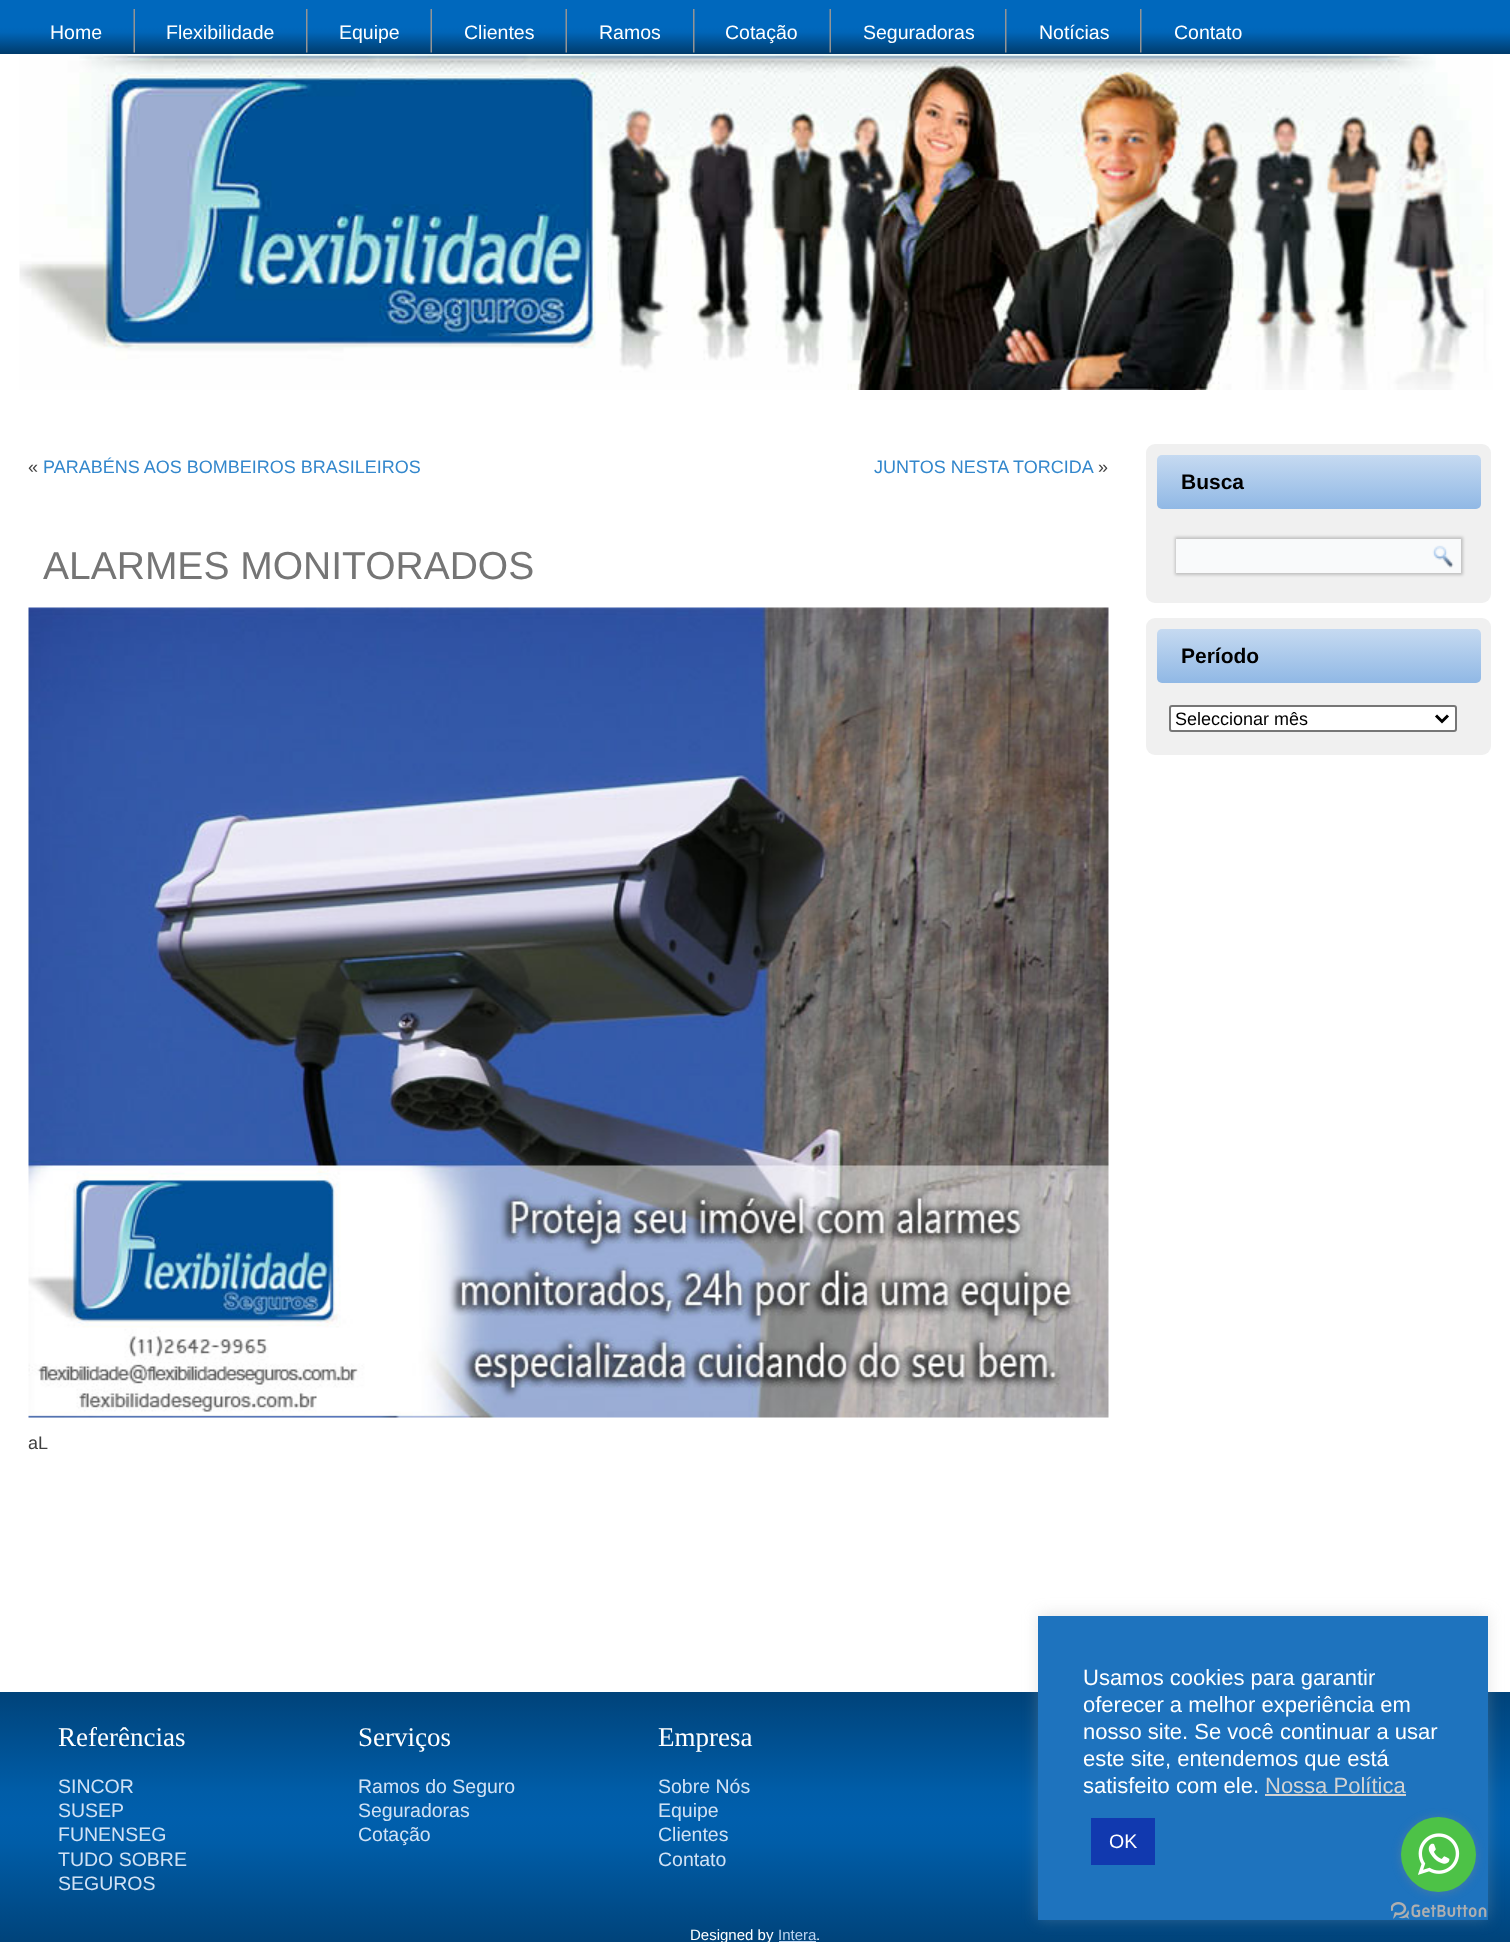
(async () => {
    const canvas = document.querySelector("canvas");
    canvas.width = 1510;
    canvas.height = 1942;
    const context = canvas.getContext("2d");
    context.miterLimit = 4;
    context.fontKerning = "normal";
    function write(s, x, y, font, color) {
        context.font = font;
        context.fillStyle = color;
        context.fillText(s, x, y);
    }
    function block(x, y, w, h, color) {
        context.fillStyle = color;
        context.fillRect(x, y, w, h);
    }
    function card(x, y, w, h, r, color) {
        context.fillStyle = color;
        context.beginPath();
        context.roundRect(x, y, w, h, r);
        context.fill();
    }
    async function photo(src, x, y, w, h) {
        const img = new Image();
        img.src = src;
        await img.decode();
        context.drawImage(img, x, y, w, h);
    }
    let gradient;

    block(0, 0, 1510, 1942, "rgb(255, 255, 255)");
    gradient = context.createLinearGradient(755, 0, 755, 54);
    gradient.addColorStop(0, "rgb(0, 104, 189)");
    gradient.addColorStop(0.5, "rgb(0, 104, 189)");
    gradient.addColorStop(0.6, "rgb(0, 101, 184)");
    gradient.addColorStop(1, "rgb(0, 59, 107)");
    context.fillStyle = gradient;
    context.fillRect(0, 0, 1510, 54);
    write("Home", 50, 39, "19.5px Liberation Sans", "rgb(255, 255, 255)");
    await photo("media/1.png", 133, 9, 2, 44);
    write("Flexibilidade", 166, 39, "19.5px Liberation Sans", "rgb(255, 255, 255)");
    await photo("media/2.png", 306, 9, 2, 44);
    write("Equipe", 339, 39, "19.5px Liberation Sans", "rgb(255, 255, 255)");
    await photo("media/1.png", 430, 9, 2, 44);
    write("Clientes", 464, 39, "19.5px Liberation Sans", "rgb(255, 255, 255)");
    await photo("media/1.png", 565, 9, 2, 44);
    write("Ramos", 599, 39, "19.5px Liberation Sans", "rgb(255, 255, 255)");
    await photo("media/2.png", 693, 9, 2, 44);
    write("Cotação", 725, 39, "19.5px Liberation Sans", "rgb(255, 255, 255)");
    await photo("media/1.png", 829, 9, 2, 44);
    write("Seguradoras", 863, 39, "19.5px Liberation Sans", "rgb(255, 255, 255)");
    await photo("media/2.png", 1005, 9, 2, 44);
    write("Notícias", 1039, 39, "19.5px Liberation Sans", "rgb(255, 255, 255)");
    await photo("media/2.png", 1140, 9, 2, 44);
    write("Contato", 1174, 39, "19.5px Liberation Sans", "rgb(255, 255, 255)");
    await photo("media/3.png", 19, 54, 1474, 336);
    write("«", 28, 473, "18px Liberation Sans", "rgb(64, 64, 64)");
    write("PARABÉNS AOS BOMBEIROS BRASILEIROS", 43, 473, "18px Liberation Sans", "rgb(51, 135, 204)");
    write("JUNTOS NESTA TORCIDA", 874, 473, "18px Liberation Sans", "rgb(51, 135, 204)");
    write("»", 1098, 473, "18px Liberation Sans", "rgb(64, 64, 64)");
    write("ALARMES MONITORADOS", 43, 579, "39px Liberation Sans", "rgb(117, 117, 117)");
    await photo("media/4.png", 28, 607, 1081, 811);
    write("aL", 28, 1449, "18px Liberation Sans", "rgb(64, 64, 64)");
    card(1146, 444, 345, 159, 9, "rgb(240, 240, 240)");
    gradient = context.createLinearGradient(1319, 455, 1319, 509);
    gradient.addColorStop(0, "rgb(198, 218, 241)");
    gradient.addColorStop(1, "rgb(144, 184, 229)");
    context.fillStyle = gradient;
    context.beginPath();
    context.roundRect(1157, 455, 324, 54, 5);
    context.fill();
    write("Busca", 1181, 489, "bold 21px Liberation Sans", "rgb(0, 0, 0)");
    context.fillStyle = "rgba(0, 0, 0, 0.2)";
    context.filter = "blur(1.5px)";
    context.beginPath();
    context.rect(1175, 537, 288, 38);
    context.fill();
    context.filter = "none";
    block(1176, 539, 285, 34, "rgb(249, 250, 251)");
    await photo("media/5.png", 1432, 545, 22, 23);
    card(1146, 618, 345, 137, 9, "rgb(240, 240, 240)");
    gradient = context.createLinearGradient(1319, 629, 1319, 683);
    gradient.addColorStop(0, "rgb(198, 218, 241)");
    gradient.addColorStop(1, "rgb(144, 184, 229)");
    context.fillStyle = gradient;
    context.beginPath();
    context.roundRect(1157, 629, 324, 54, 5);
    context.fill();
    write("Período", 1181, 663, "bold 21px Liberation Sans", "rgb(0, 0, 0)");
    context.fillStyle = "rgb(255, 255, 255)";
    context.beginPath();
    context.roundRect(1170, 706, 286, 25, 2);
    context.fill();
    context.strokeStyle = "rgb(118, 118, 118)";
    context.lineWidth = 2;
    context.stroke();
    context.beginPath();
    context.moveTo(1436, 715.5);
    context.lineTo(1442, 721.5);
    context.lineTo(1448, 715.5);
    context.strokeStyle = "rgb(0, 0, 0)";
    context.lineWidth = 3;
    context.stroke();
    write("Seleccionar mês", 1175, 725, "18px Liberation Sans", "rgb(0, 0, 0)");
    gradient = context.createLinearGradient(755, 1692, 755, 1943);
    gradient.addColorStop(0, "rgb(0, 67, 122)");
    gradient.addColorStop(0.4, "rgb(0, 93, 168)");
    gradient.addColorStop(0.5, "rgb(0, 95, 173)");
    gradient.addColorStop(0.6, "rgb(0, 93, 168)");
    gradient.addColorStop(1, "rgb(0, 67, 122)");
    context.fillStyle = gradient;
    context.fillRect(0, 1692, 1510, 250);
    write("Referências", 58, 1746, "27px Liberation Serif", "rgb(255, 255, 255)");
    write("SINCOR", 58, 1793, "19.5px Liberation Sans", "rgb(209, 226, 245)");
    write("SUSEP", 58, 1817, "19.5px Liberation Sans", "rgb(209, 226, 245)");
    write("FUNENSEG", 58, 1841, "19.5px Liberation Sans", "rgb(209, 226, 245)");
    write("TUDO SOBRE", 58, 1866, "19.5px Liberation Sans", "rgb(209, 226, 245)");
    write("SEGUROS", 58, 1890, "19.5px Liberation Sans", "rgb(209, 226, 245)");
    write("Serviços", 358, 1746, "27px Liberation Serif", "rgb(255, 255, 255)");
    write("Ramos do Seguro", 358, 1793, "19.5px Liberation Sans", "rgb(209, 226, 245)");
    write("Seguradoras", 358, 1817, "19.5px Liberation Sans", "rgb(209, 226, 245)");
    write("Cotação", 358, 1841, "19.5px Liberation Sans", "rgb(209, 226, 245)");
    write("Empresa", 658, 1746, "27px Liberation Serif", "rgb(255, 255, 255)");
    write("Sobre Nós", 658, 1793, "19.5px Liberation Sans", "rgb(209, 226, 245)");
    write("Equipe", 658, 1817, "19.5px Liberation Sans", "rgb(209, 226, 245)");
    write("Clientes", 658, 1841, "19.5px Liberation Sans", "rgb(209, 226, 245)");
    write("Contato", 658, 1866, "19.5px Liberation Sans", "rgb(209, 226, 245)");
    write("Designed by", 690, 1940, "15px Liberation Sans", "rgb(255, 255, 255)");
    write("Intera", 778, 1940, "15px Liberation Sans", "rgb(188, 212, 241)");
    write(".", 816, 1940, "15px Liberation Sans", "rgb(255, 255, 255)");
    block(779, 1941, 37, 1, "rgb(188, 212, 241)");
    context.fillStyle = "rgba(172, 171, 171, 0.3)";
    context.filter = "blur(7.5px)";
    context.beginPath();
    context.rect(1038, 1614, 450, 305);
    context.fill();
    context.filter = "none";
    block(1038, 1616, 450, 304, "rgb(30, 115, 190)");
    write("Usamos cookies para garantir", 1083, 1685, "22px Liberation Sans", "rgb(255, 255, 255)");
    write("oferecer a melhor experiência em", 1083, 1712, "22px Liberation Sans", "rgb(255, 255, 255)");
    write("nosso site. Se você continuar a usar", 1083, 1739, "22px Liberation Sans", "rgb(255, 255, 255)");
    write("este site, entendemos que está", 1083, 1766, "22px Liberation Sans", "rgb(255, 255, 255)");
    write("satisfeito com ele.", 1083, 1793, "22px Liberation Sans", "rgb(255, 255, 255)");
    write("Nossa Política", 1265, 1793, "22px Liberation Sans", "rgb(211, 211, 211)");
    block(1265, 1794, 141, 2, "rgb(211, 211, 211)");
    block(1091, 1818, 64, 47, "rgb(17, 57, 175)");
    write("OK", 1109, 1848, "19.5px Liberation Sans", "rgb(255, 255, 255)");
    await photo("media/7.png", 1391, 1902, 96, 17);
    context.fillStyle = "rgba(136, 136, 136, 0.4)";
    context.filter = "blur(5px)";
    context.beginPath();
    context.roundRect(1401, 1818, 75, 75, 37.5);
    context.fill();
    context.filter = "none";
    context.fillStyle = "rgb(77, 194, 71)";
    context.beginPath();
    context.arc(1438.5, 1854.5, 37.5, 0, Math.PI * 2);
    context.fill();
    await photo("media/6.png", 1418, 1833, 42, 42);
})();
